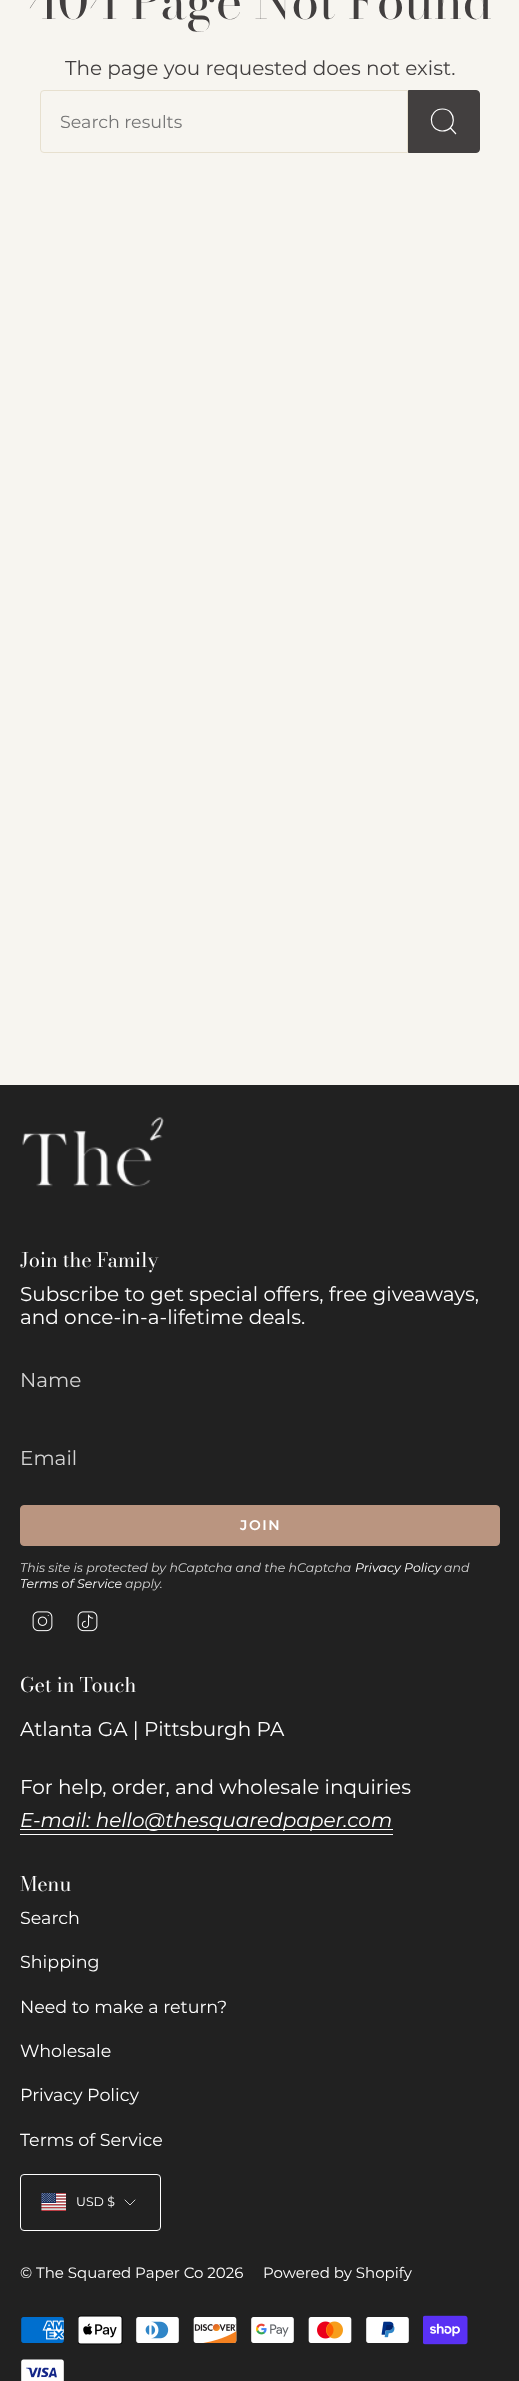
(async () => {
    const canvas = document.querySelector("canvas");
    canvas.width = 519;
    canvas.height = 2381;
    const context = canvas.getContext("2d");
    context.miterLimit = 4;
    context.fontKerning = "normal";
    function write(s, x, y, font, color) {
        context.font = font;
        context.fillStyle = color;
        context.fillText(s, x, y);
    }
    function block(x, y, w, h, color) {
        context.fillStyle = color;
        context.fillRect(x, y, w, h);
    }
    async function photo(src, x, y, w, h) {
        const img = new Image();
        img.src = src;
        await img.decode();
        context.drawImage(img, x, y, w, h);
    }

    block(0, 0, 519, 2381, "rgb(247, 245, 240)");
    write("404 Page Not Found", 28, 19, "50px 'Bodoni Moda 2'", "rgb(66, 63, 63)");
    write("The page you requested does not exist.", 65, 75, "20px Montserrat", "rgb(66, 63, 63)");
    context.beginPath();
    context.roundRect(40.5, 90.5, 367, 62, [3.5, 0, 0, 3.5]);
    context.strokeStyle = "rgb(231, 224, 207)";
    context.stroke();
    write("Search results", 60, 128, "17.5px Montserrat", "rgb(117, 117, 117)");
    context.fillStyle = "rgb(66, 63, 63)";
    context.beginPath();
    context.roundRect(408.5, 90.5, 71, 62, [0, 3.5, 3.5, 0]);
    context.fill();
    context.strokeStyle = "rgb(66, 63, 63)";
    context.stroke();
    context.beginPath();
    context.moveTo(442.5, 109);
    context.bezierCurveTo(457, 109, 457, 131.5, 442, 131);
    context.bezierCurveTo(427.5, 130, 428, 109, 442.5, 109);
    context.closePath();
    context.moveTo(450, 127.5);
    context.lineTo(456, 134);
    context.strokeStyle = "rgb(255, 255, 255)";
    context.lineWidth = 1.2;
    context.stroke();
    block(0, 1085, 519, 1296, "rgb(33, 33, 33)");
    await photo("media/1.png", 22, 1117, 142, 70);
    write("Join the Family", 20, 1267, "20px Bodoni Moda", "rgb(255, 255, 255)");
    write("Subscribe to get special offers, free giveaways,", 20, 1301, "20px Montserrat", "rgb(255, 255, 255)");
    write("and once-in-a-lifetime deals.", 20, 1324, "20px Montserrat", "rgb(255, 255, 255)");
    write("Name", 20, 1387, "20px Montserrat", "rgb(211, 211, 211)");
    write("Email", 20, 1465, "20px Montserrat", "rgb(211, 211, 211)");
    context.fillStyle = "rgb(186, 149, 128)";
    context.beginPath();
    context.roundRect(20.5, 1505.5, 479, 40, 3.5);
    context.fill();
    context.strokeStyle = "rgb(186, 149, 128)";
    context.lineWidth = 1;
    context.stroke();
    context.letterSpacing = "1.5px";
    write("JOIN", 240, 1530, "600 14px Montserrat", "rgb(255, 255, 255)");
    context.letterSpacing = "0px";
    write("This site is protected by hCaptcha and the hCaptcha", 20, 1572, "italic 12.5px Montserrat", "rgb(211, 211, 211)");
    write("Privacy Policy", 355, 1572, "italic 12.5px Montserrat", "rgb(255, 255, 255)");
    write("and", 444, 1572, "italic 12.5px Montserrat", "rgb(211, 211, 211)");
    write("Terms of Service", 20, 1588, "italic 12.5px Montserrat", "rgb(255, 255, 255)");
    write("apply.", 125, 1588, "italic 12.5px Montserrat", "rgb(211, 211, 211)");
    await photo("media/2.png", 32, 1611, 21, 21);
    await photo("media/3.png", 77, 1611, 21, 21);
    write("Get in Touch", 20, 1692, "20px Bodoni Moda", "rgb(255, 255, 255)");
    write("Atlanta GA | Pittsburgh PA", 20, 1736, "20px Montserrat", "rgb(255, 255, 255)");
    write("For help, order, and wholesale inquiries", 20, 1794, "20px Montserrat", "rgb(255, 255, 255)");
    block(20, 1829, 373, 1, "rgb(255, 255, 255)");
    write("E-mail: hello@thesquaredpaper.com", 20, 1827, "italic 20px Montserrat", "rgb(255, 255, 255)");
    block(20, 1834, 373, 1, "rgb(255, 255, 255)");
    write("Menu", 20, 1891, "20px Bodoni Moda", "rgb(255, 255, 255)");
    write("Search", 20, 1924, "17.5px Montserrat", "rgb(255, 255, 255)");
    write("Shipping", 20, 1968, "17.5px Montserrat", "rgb(255, 255, 255)");
    write("Need to make a return?", 20, 2013, "17.5px Montserrat", "rgb(255, 255, 255)");
    write("Wholesale", 20, 2057, "17.5px Montserrat", "rgb(255, 255, 255)");
    write("Privacy Policy", 20, 2101, "17.5px Montserrat", "rgb(255, 255, 255)");
    write("Terms of Service", 20, 2146, "17.5px Montserrat", "rgb(255, 255, 255)");
    context.beginPath();
    context.roundRect(20.5, 2174.5, 140, 56, 3.5);
    context.strokeStyle = "rgb(255, 255, 255)";
    context.stroke();
    await photo("media/4.png", 41, 2193, 25, 18);
    write("USD $", 76, 2206, "12.5px Montserrat", "rgb(255, 255, 255)");
    context.beginPath();
    context.moveTo(125, 2200);
    context.lineTo(130, 2205);
    context.lineTo(135, 2200);
    context.lineWidth = 0.8;
    context.lineCap = "round";
    context.lineJoin = "round";
    context.stroke();
    write("© The Squared Paper Co 2026", 20, 2278, "15px Montserrat", "rgb(255, 255, 255)");
    write("Powered by Shopify", 263, 2278, "15px Montserrat", "rgb(255, 255, 255)");
    await photo("media/5.png", 21, 2317, 43, 26);
    await photo("media/6.png", 78, 2315, 45, 30);
    await photo("media/7.png", 136, 2317, 43, 26);
    await photo("media/8.png", 193, 2317, 44, 26);
    await photo("media/9.png", 251, 2317, 43, 26);
    await photo("media/10.png", 308, 2317, 44, 26);
    await photo("media/11.png", 366, 2317, 43, 26);
    await photo("media/12.png", 423, 2315, 45, 30);
    await photo("media/13.png", 21, 2359, 43, 22);
})();
